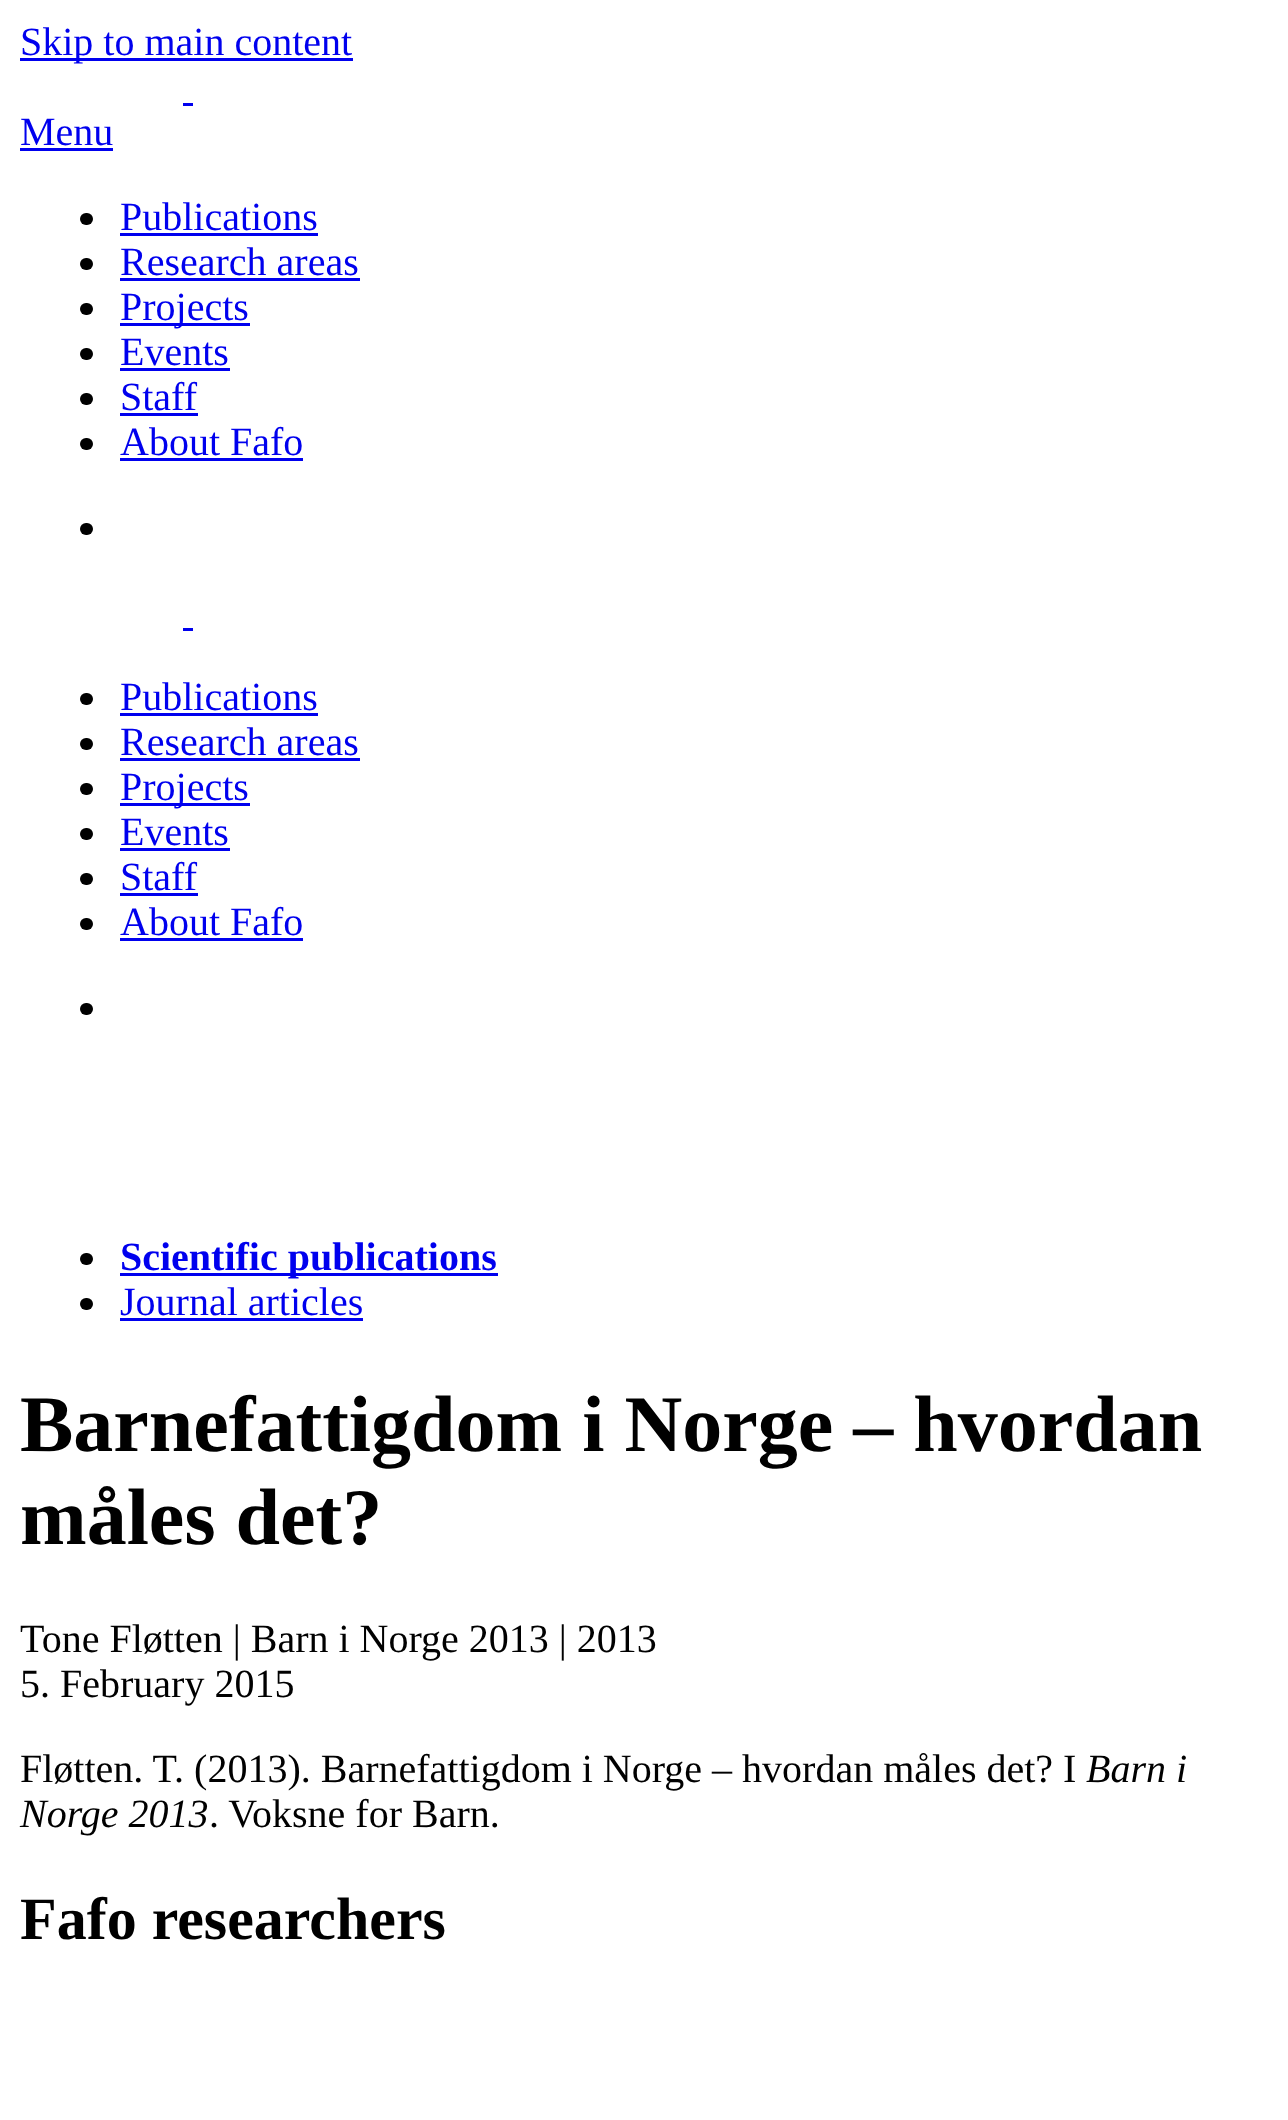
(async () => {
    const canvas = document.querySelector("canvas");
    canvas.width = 1288;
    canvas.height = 2120;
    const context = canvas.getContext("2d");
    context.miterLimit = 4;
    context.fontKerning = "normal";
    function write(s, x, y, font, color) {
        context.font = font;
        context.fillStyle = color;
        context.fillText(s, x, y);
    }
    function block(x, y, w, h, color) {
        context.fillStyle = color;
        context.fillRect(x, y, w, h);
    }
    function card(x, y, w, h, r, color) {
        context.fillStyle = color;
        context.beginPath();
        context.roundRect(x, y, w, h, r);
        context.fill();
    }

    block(0, 0, 1288, 2120, "rgb(255, 255, 255)");
    block(20, 58, 333, 3, "rgb(0, 0, 238)");
    write("Skip to main content", 20, 55, "40px Liberation Serif", "rgb(0, 0, 238)");
    block(183, 103, 10, 3, "rgb(0, 0, 238)");
    write("Menu", 20, 145, "40px Liberation Serif", "rgb(0, 0, 238)");
    block(20, 148, 93, 3, "rgb(0, 0, 238)");
    card(80, 213, 13, 12, 6, "rgb(0, 0, 0)");
    write("Publications", 120, 230, "40px Liberation Serif", "rgb(0, 0, 238)");
    block(120, 233, 198, 3, "rgb(0, 0, 238)");
    card(80, 258, 13, 12, 6, "rgb(0, 0, 0)");
    write("Research areas", 120, 275, "40px Liberation Serif", "rgb(0, 0, 238)");
    block(120, 278, 240, 3, "rgb(0, 0, 238)");
    card(80, 303, 13, 12, 6, "rgb(0, 0, 0)");
    block(120, 323, 130, 3, "rgb(0, 0, 238)");
    write("Projects", 120, 320, "40px Liberation Serif", "rgb(0, 0, 238)");
    card(80, 348, 13, 12, 6, "rgb(0, 0, 0)");
    write("Events", 120, 365, "40px Liberation Serif", "rgb(0, 0, 238)");
    block(120, 368, 110, 3, "rgb(0, 0, 238)");
    card(80, 393, 13, 12, 6, "rgb(0, 0, 0)");
    write("Staff", 120, 410, "40px Liberation Serif", "rgb(0, 0, 238)");
    block(120, 413, 78, 3, "rgb(0, 0, 238)");
    card(80, 438, 13, 12, 6, "rgb(0, 0, 0)");
    write("About Fafo", 120, 455, "40px Liberation Serif", "rgb(0, 0, 238)");
    block(120, 458, 183, 3, "rgb(0, 0, 238)");
    card(80, 523, 13, 12, 6, "rgb(0, 0, 0)");
    block(183, 628, 10, 3, "rgb(0, 0, 238)");
    card(80, 693, 13, 12, 6, "rgb(0, 0, 0)");
    write("Publications", 120, 710, "40px Liberation Serif", "rgb(0, 0, 238)");
    block(120, 713, 198, 3, "rgb(0, 0, 238)");
    card(80, 738, 13, 12, 6, "rgb(0, 0, 0)");
    write("Research areas", 120, 755, "40px Liberation Serif", "rgb(0, 0, 238)");
    block(120, 758, 240, 3, "rgb(0, 0, 238)");
    card(80, 783, 13, 12, 6, "rgb(0, 0, 0)");
    block(120, 803, 130, 3, "rgb(0, 0, 238)");
    write("Projects", 120, 800, "40px Liberation Serif", "rgb(0, 0, 238)");
    card(80, 828, 13, 12, 6, "rgb(0, 0, 0)");
    write("Events", 120, 845, "40px Liberation Serif", "rgb(0, 0, 238)");
    block(120, 848, 110, 3, "rgb(0, 0, 238)");
    card(80, 873, 13, 12, 6, "rgb(0, 0, 0)");
    write("Staff", 120, 890, "40px Liberation Serif", "rgb(0, 0, 238)");
    block(120, 893, 78, 3, "rgb(0, 0, 238)");
    card(80, 918, 13, 12, 6, "rgb(0, 0, 0)");
    write("About Fafo", 120, 935, "40px Liberation Serif", "rgb(0, 0, 238)");
    block(120, 938, 183, 3, "rgb(0, 0, 238)");
    card(80, 1003, 13, 12, 6, "rgb(0, 0, 0)");
    card(80, 1253, 13, 12, 6, "rgb(0, 0, 0)");
    block(120, 1273, 378, 3, "rgb(0, 0, 238)");
    write("Scientific publications", 120, 1270, "bold 40px Liberation Serif", "rgb(0, 0, 238)");
    card(80, 1298, 13, 12, 6, "rgb(0, 0, 0)");
    write("Journal articles", 120, 1315, "40px Liberation Serif", "rgb(0, 0, 238)");
    block(120, 1318, 243, 3, "rgb(0, 0, 238)");
    write("Barnefattigdom i Norge – hvordan", 20, 1451, "bold 80px Liberation Serif", "rgb(0, 0, 0)");
    write("måles det?", 20, 1544, "bold 80px Liberation Serif", "rgb(0, 0, 0)");
    write("Tone Fløtten | Barn i Norge 2013 | 2013", 20, 1652, "40px Liberation Serif", "rgb(0, 0, 0)");
    write("5. February 2015", 20, 1697, "40px Liberation Serif", "rgb(0, 0, 0)");
    write("Fløtten. T. (2013). Barnefattigdom i Norge – hvordan måles det? I", 20, 1782, "40px Liberation Serif", "rgb(0, 0, 0)");
    write("Barn i", 1086, 1782, "italic 40px Liberation Serif", "rgb(0, 0, 0)");
    write("Norge 2013", 20, 1827, "italic 40px Liberation Serif", "rgb(0, 0, 0)");
    write(". Voksne for Barn.", 209, 1827, "40px Liberation Serif", "rgb(0, 0, 0)");
    write("Fafo researchers", 20, 1939, "bold 60px Liberation Serif", "rgb(0, 0, 0)");
})();
